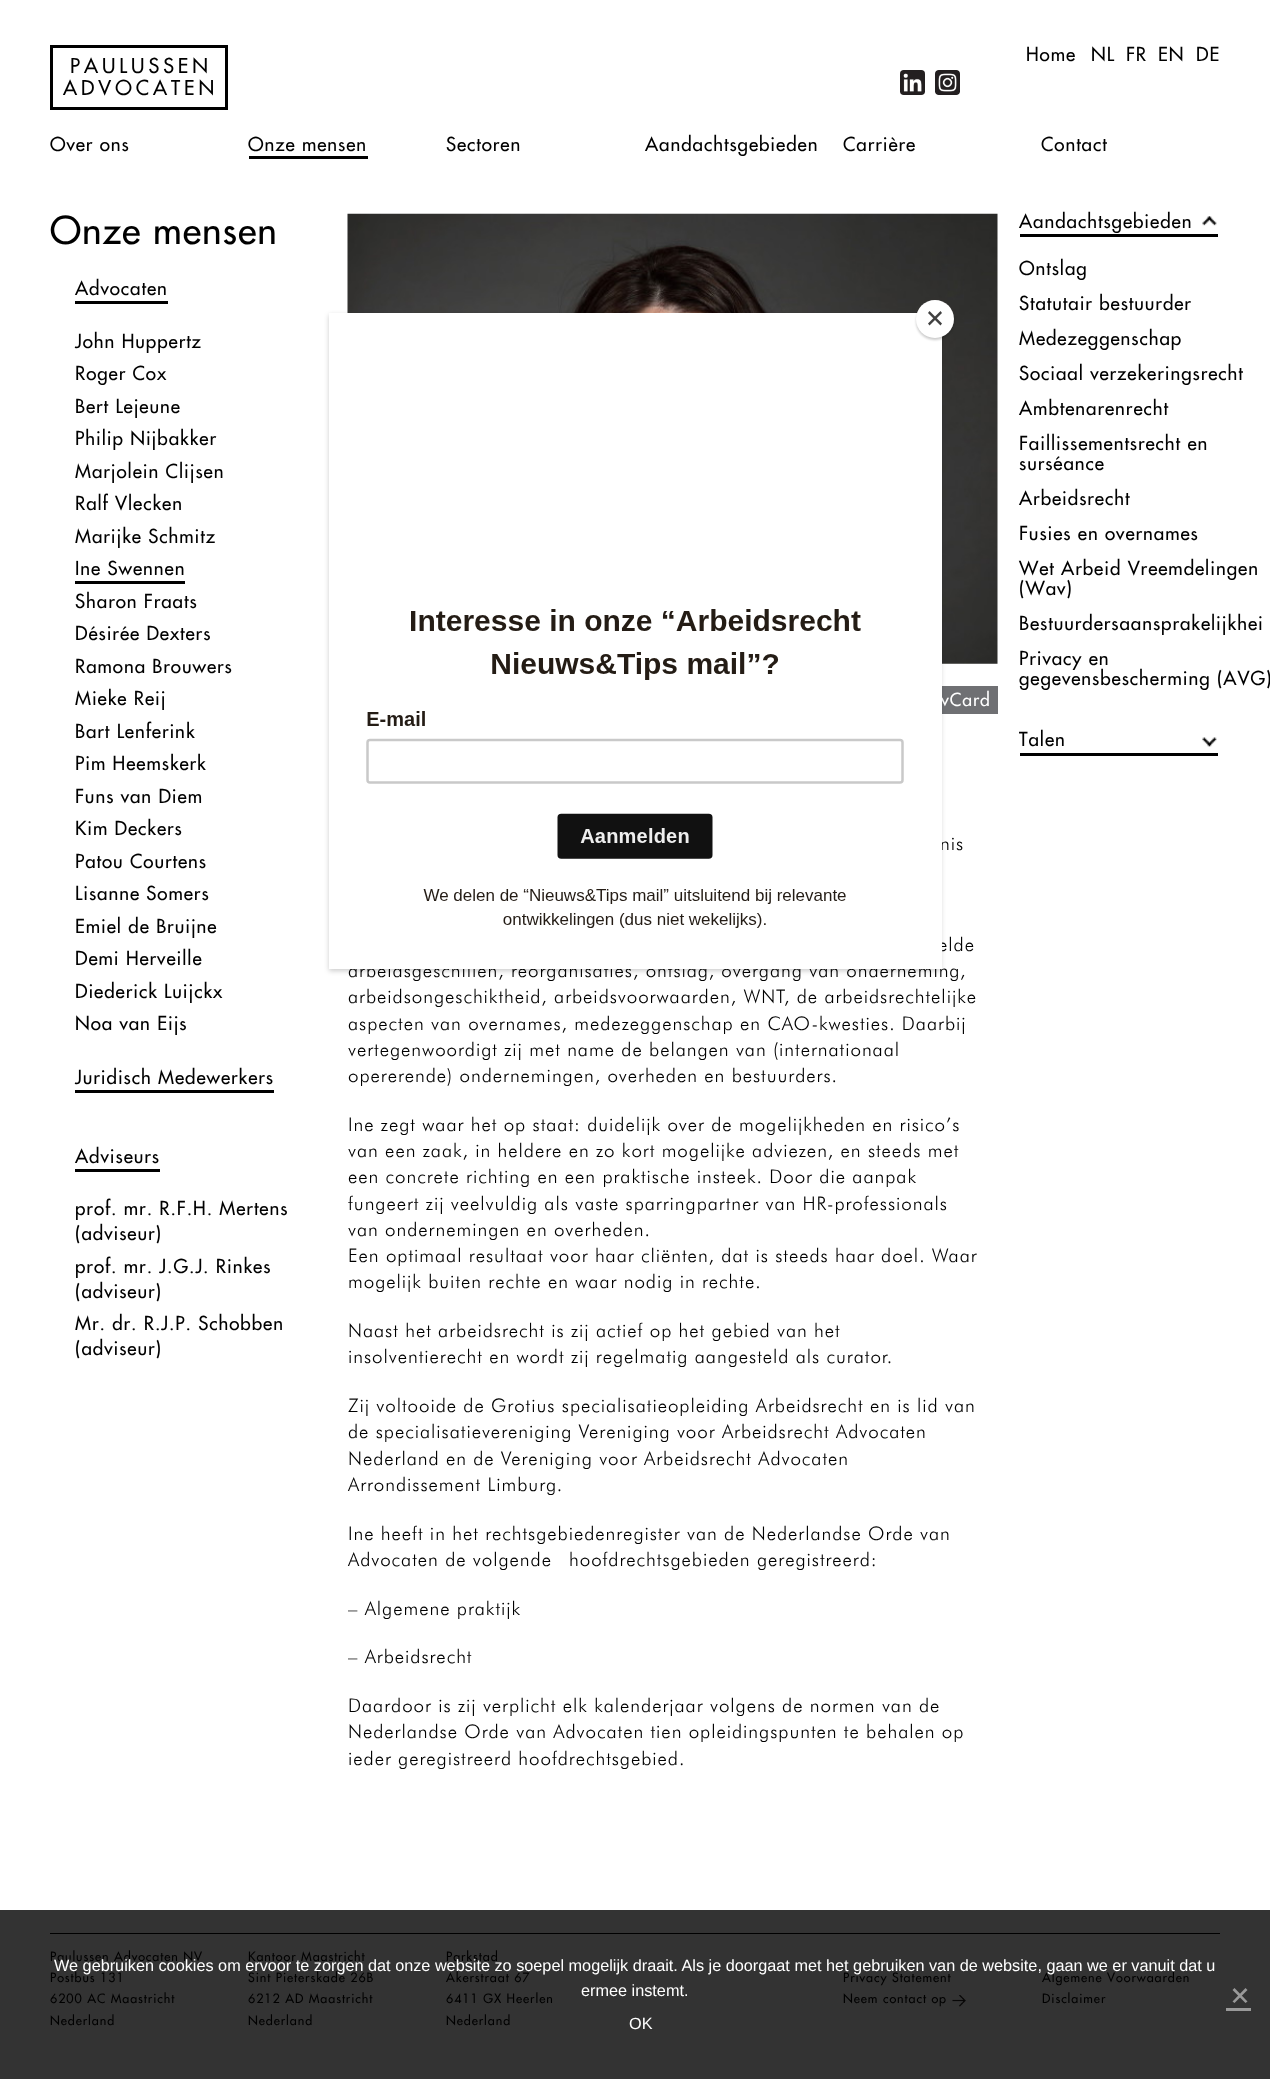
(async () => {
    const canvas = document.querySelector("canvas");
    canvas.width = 1270;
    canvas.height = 2079;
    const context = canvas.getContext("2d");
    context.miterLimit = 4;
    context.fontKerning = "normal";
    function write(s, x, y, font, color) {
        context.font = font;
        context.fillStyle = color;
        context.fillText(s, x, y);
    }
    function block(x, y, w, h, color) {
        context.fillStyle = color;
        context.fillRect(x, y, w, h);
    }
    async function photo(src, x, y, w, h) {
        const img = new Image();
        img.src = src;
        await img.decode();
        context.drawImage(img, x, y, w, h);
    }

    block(0, 0, 1270, 2079, "rgb(255, 255, 255)");
    block(0, 1910, 1270, 169, "rgb(51, 51, 51)");
    context.letterSpacing = "0.95px";
    write("Home", 1026, 61, "500 18.75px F", "rgb(0, 0, 0)");
    write("NL", 1091, 61, "500 18.75px F", "rgb(0, 0, 0)");
    write("FR", 1126, 61, "500 18.75px F", "rgb(0, 0, 0)");
    write("EN", 1158, 61, "500 18.75px F", "rgb(0, 0, 0)");
    write("DE", 1196, 61, "500 18.75px F", "rgb(0, 0, 0)");
    context.strokeStyle = "rgb(0, 0, 0)";
    context.lineWidth = 3;
    context.strokeRect(51.5, 46.5, 175, 62);
    context.letterSpacing = "4px";
    write("PAULUSSEN", 70, 73, "500 20px F", "rgb(0, 0, 0)");
    write("ADVOCATEN", 63, 95, "500 20px F", "rgb(0, 0, 0)");
    await photo("media/1.png", 900, 70, 25, 25);
    await photo("media/2.png", 935, 70, 25, 25);
    context.letterSpacing = "0.95px";
    write("Over ons", 50, 151, "500 18.75px F", "rgb(0, 0, 0)");
    write("Onze mensen", 248, 151, "500 18.75px F", "rgb(0, 0, 0)");
    block(249, 156, 119, 3, "rgb(0, 0, 0)");
    write("Sectoren", 446, 151, "500 18.75px F", "rgb(0, 0, 0)");
    write("Aandachtsgebieden", 645, 151, "500 18.75px F", "rgb(0, 0, 0)");
    write("Carrière", 843, 151, "500 18.75px F", "rgb(0, 0, 0)");
    write("Contact", 1041, 151, "500 18.75px F", "rgb(0, 0, 0)");
    write("Onze mensen", 50, 244, "500 37.5px F", "rgb(0, 0, 0)");
    block(75, 301, 93, 3, "rgb(0, 0, 0)");
    write("Advocaten", 75, 295, "500 18.75px F", "rgb(0, 0, 0)");
    write("John Huppertz", 75, 348, "500 18.75px F", "rgb(0, 0, 0)");
    write("Roger Cox", 75, 380, "500 18.75px F", "rgb(0, 0, 0)");
    write("Bert Lejeune", 75, 413, "500 18.75px F", "rgb(0, 0, 0)");
    write("Philip Nijbakker", 75, 445, "500 18.75px F", "rgb(0, 0, 0)");
    write("Marjolein Clijsen", 75, 478, "500 18.75px F", "rgb(0, 0, 0)");
    write("Ralf Vlecken", 75, 510, "500 18.75px F", "rgb(0, 0, 0)");
    write("Marijke Schmitz", 75, 543, "500 18.75px F", "rgb(0, 0, 0)");
    block(75, 581, 110, 3, "rgb(0, 0, 0)");
    write("Ine Swennen", 75, 575, "500 18.75px F", "rgb(0, 0, 0)");
    write("Sharon Fraats", 75, 608, "500 18.75px F", "rgb(0, 0, 0)");
    write("Désirée Dexters", 75, 640, "500 18.75px F", "rgb(0, 0, 0)");
    write("Ramona Brouwers", 75, 673, "500 18.75px F", "rgb(0, 0, 0)");
    write("Mieke Reij", 75, 705, "500 18.75px F", "rgb(0, 0, 0)");
    write("Bart Lenferink", 75, 738, "500 18.75px F", "rgb(0, 0, 0)");
    write("Pim Heemskerk", 75, 770, "500 18.75px F", "rgb(0, 0, 0)");
    write("Funs van Diem", 75, 803, "500 18.75px F", "rgb(0, 0, 0)");
    write("Kim Deckers", 75, 835, "500 18.75px F", "rgb(0, 0, 0)");
    write("Patou Courtens", 75, 868, "500 18.75px F", "rgb(0, 0, 0)");
    write("Lisanne Somers", 75, 900, "500 18.75px F", "rgb(0, 0, 0)");
    write("Emiel de Bruijne", 75, 933, "500 18.75px F", "rgb(0, 0, 0)");
    write("Demi Herveille", 75, 965, "500 18.75px F", "rgb(0, 0, 0)");
    write("Diederick Luijckx", 75, 998, "500 18.75px F", "rgb(0, 0, 0)");
    write("Noa van Eijs", 75, 1030, "500 18.75px F", "rgb(0, 0, 0)");
    block(75, 1090, 199, 3, "rgb(0, 0, 0)");
    write("Juridisch Medewerkers", 75, 1084, "500 18.75px F", "rgb(0, 0, 0)");
    block(75, 1169, 85, 3, "rgb(0, 0, 0)");
    write("Adviseurs", 75, 1163, "500 18.75px F", "rgb(0, 0, 0)");
    write("prof. mr. R.F.H. Mertens", 75, 1215, "500 18.75px F", "rgb(0, 0, 0)");
    write("(adviseur)", 75, 1240, "500 18.75px F", "rgb(0, 0, 0)");
    write("prof. mr. J.G.J. Rinkes", 75, 1273, "500 18.75px F", "rgb(0, 0, 0)");
    write("(adviseur)", 75, 1298, "500 18.75px F", "rgb(0, 0, 0)");
    write("Mr. dr. R.J.P. Schobben", 75, 1330, "500 18.75px F", "rgb(0, 0, 0)");
    write("(adviseur)", 75, 1355, "500 18.75px F", "rgb(0, 0, 0)");
    await photo("media/3.png", 1202, 216, 15, 10);
    block(1020, 234, 198, 3, "rgb(0, 0, 0)");
    write("Aandachtsgebieden", 1019, 228, "500 18.75px F", "rgb(0, 0, 0)");
    write("Ontslag", 1019, 275, "500 18.75px F", "rgb(0, 0, 0)");
    write("Statutair bestuurder", 1019, 310, "500 18.75px F", "rgb(0, 0, 0)");
    write("Medezeggenschap", 1019, 345, "500 18.75px F", "rgb(0, 0, 0)");
    write("Sociaal verzekeringsrecht", 1019, 380, "500 18.75px F", "rgb(0, 0, 0)");
    write("Ambtenarenrecht", 1019, 415, "500 18.75px F", "rgb(0, 0, 0)");
    write("Faillissementsrecht en", 1019, 450, "500 18.75px F", "rgb(0, 0, 0)");
    write("surséance", 1019, 470, "500 18.75px F", "rgb(0, 0, 0)");
    write("Arbeidsrecht", 1019, 505, "500 18.75px F", "rgb(0, 0, 0)");
    write("Fusies en overnames", 1019, 540, "500 18.75px F", "rgb(0, 0, 0)");
    write("Wet Arbeid Vreemdelingen", 1019, 575, "500 18.75px F", "rgb(0, 0, 0)");
    write("(Wav)", 1019, 595, "500 18.75px F", "rgb(0, 0, 0)");
    write("Bestuurdersaansprakelijkhei", 1019, 630, "500 18.75px F", "rgb(0, 0, 0)");
    write("Privacy en", 1019, 665, "500 18.75px F", "rgb(0, 0, 0)");
    write("gegevensbescherming (AVG)", 1019, 685, "500 18.75px F", "rgb(0, 0, 0)");
    await photo("media/4.png", 1202, 737, 15, 10);
    block(1020, 753, 198, 3, "rgb(0, 0, 0)");
    write("Talen", 1019, 746, "500 18.75px F", "rgb(0, 0, 0)");
    await photo("media/5.png", 347, 213, 651, 451);
    block(942, 686, 56, 28, "rgb(111, 112, 115)");
    write("vCard", 941, 706, "500 17.5px F", "rgb(255, 255, 255)");
    write("nis", 940, 850, "300 18.75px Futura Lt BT", "rgb(0, 0, 0)");
    write("elde", 938, 951, "300 18.75px Futura Lt BT", "rgb(0, 0, 0)");
    write("arbeidsgeschillen, reorganisaties, ontslag, overgang van onderneming,", 348, 977, "300 18.75px Futura Lt BT", "rgb(0, 0, 0)");
    write("arbeidsongeschiktheid, arbeidsvoorwaarden, WNT, de arbeidsrechtelijke", 348, 1003, "300 18.75px Futura Lt BT", "rgb(0, 0, 0)");
    write("aspecten van overnames, medezeggenschap en CAO-kwesties. Daarbij", 348, 1030, "300 18.75px Futura Lt BT", "rgb(0, 0, 0)");
    write("vertegenwoordigt zij met name de belangen van (internationaal", 348, 1056, "300 18.75px Futura Lt BT", "rgb(0, 0, 0)");
    write("opererende) ondernemingen, overheden en bestuurders.", 348, 1082, "300 18.75px Futura Lt BT", "rgb(0, 0, 0)");
    write("Ine zegt waar het op staat: duidelijk over de mogelijkheden en risico’s", 348, 1131, "300 18.75px Futura Lt BT", "rgb(0, 0, 0)");
    write("van een zaak, in heldere en zo kort mogelijke adviezen, en steeds met", 348, 1157, "300 18.75px Futura Lt BT", "rgb(0, 0, 0)");
    write("een concrete richting en een praktische insteek. Door die aanpak", 348, 1183, "300 18.75px Futura Lt BT", "rgb(0, 0, 0)");
    write("fungeert zij veelvuldig als vaste sparringpartner van HR-professionals", 348, 1210, "300 18.75px Futura Lt BT", "rgb(0, 0, 0)");
    write("van ondernemingen en overheden.", 348, 1236, "300 18.75px Futura Lt BT", "rgb(0, 0, 0)");
    write("Een optimaal resultaat voor haar cliënten, dat is steeds haar doel. Waar", 348, 1262, "300 18.75px Futura Lt BT", "rgb(0, 0, 0)");
    write("mogelijk buiten rechte en waar nodig in rechte.", 348, 1288, "300 18.75px Futura Lt BT", "rgb(0, 0, 0)");
    write("Naast het arbeidsrecht is zij actief op het gebied van het", 348, 1337, "300 18.75px Futura Lt BT", "rgb(0, 0, 0)");
    write("insolventierecht en wordt zij regelmatig aangesteld als curator.", 348, 1363, "300 18.75px Futura Lt BT", "rgb(0, 0, 0)");
    write("Zij voltooide de Grotius specialisatieopleiding Arbeidsrecht en is lid van", 348, 1412, "300 18.75px Futura Lt BT", "rgb(0, 0, 0)");
    write("de specialisatievereniging Vereniging voor Arbeidsrecht Advocaten", 348, 1438, "300 18.75px Futura Lt BT", "rgb(0, 0, 0)");
    write("Nederland en de Vereniging voor Arbeidsrecht Advocaten", 348, 1465, "300 18.75px Futura Lt BT", "rgb(0, 0, 0)");
    write("Arrondissement Limburg.", 348, 1491, "300 18.75px Futura Lt BT", "rgb(0, 0, 0)");
    write("Ine heeft in het rechtsgebiedenregister van de Nederlandse Orde van", 348, 1540, "300 18.75px Futura Lt BT", "rgb(0, 0, 0)");
    write("Advocaten de volgende", 348, 1566, "300 18.75px Futura Lt BT", "rgb(0, 0, 0)");
    write("hoofdrechtsgebieden geregistreerd:", 569, 1566, "300 18.75px Futura Lt BT", "rgb(0, 0, 0)");
    write("– Algemene praktijk", 348, 1615, "300 18.75px Futura Lt BT", "rgb(0, 0, 0)");
    write("– Arbeidsrecht", 348, 1663, "300 18.75px Futura Lt BT", "rgb(0, 0, 0)");
    write("Daardoor is zij verplicht elk kalenderjaar volgens de normen van de", 348, 1712, "300 18.75px Futura Lt BT", "rgb(0, 0, 0)");
    write("Nederlandse Orde van Advocaten tien opleidingspunten te behalen op", 348, 1738, "300 18.75px Futura Lt BT", "rgb(0, 0, 0)");
    write("ieder geregistreerd hoofdrechtsgebied.", 348, 1765, "300 18.75px Futura Lt BT", "rgb(0, 0, 0)");
    block(50, 1933, 1170, 1, "rgb(0, 0, 0)");
    write("Paulussen Advocaten NV", 50, 1961, "500 12.5px F", "rgb(0, 0, 0)");
    write("Postbus 131", 50, 1982, "500 12.5px F", "rgb(0, 0, 0)");
    write("6200 AC Maastricht", 50, 2003, "500 12.5px F", "rgb(0, 0, 0)");
    write("Nederland", 50, 2025, "500 12.5px F", "rgb(0, 0, 0)");
    write("Kantoor Maastricht", 248, 1961, "500 12.5px F", "rgb(0, 0, 0)");
    write("Sint Pieterskade 26B", 248, 1982, "500 12.5px F", "rgb(0, 0, 0)");
    write("6212 AD Maastricht", 248, 2003, "500 12.5px F", "rgb(0, 0, 0)");
    write("Nederland", 248, 2025, "500 12.5px F", "rgb(0, 0, 0)");
    write("Parkstad", 446, 1961, "500 12.5px F", "rgb(0, 0, 0)");
    write("Akerstraat 67", 446, 1982, "500 12.5px F", "rgb(0, 0, 0)");
    write("6411 GX Heerlen", 446, 2003, "500 12.5px F", "rgb(0, 0, 0)");
    write("Nederland", 446, 2025, "500 12.5px F", "rgb(0, 0, 0)");
    write("Privacy Statement", 843, 1982, "500 12.5px F", "rgb(0, 0, 0)");
    write("Algemene Voorwaarden", 1042, 1982, "500 12.5px F", "rgb(0, 0, 0)");
    write("Neem contact op", 843, 2003, "500 12.5px F", "rgb(0, 0, 0)");
    await photo("media/6.png", 952, 1995, 14, 12);
    write("Disclaimer", 1042, 2003, "500 12.5px F", "rgb(0, 0, 0)");
    context.fillStyle = "rgba(0, 0, 0, 0.2)";
    context.filter = "blur(2.5px)";
    context.beginPath();
    context.rect(329, 315, 612, 656);
    context.fill();
    context.filter = "none";
    await photo("media/7.png", 329, 313, 613, 656);
    context.filter = "blur(1px)";
    context.beginPath();
    context.roundRect(916, 303, 38, 37, 18.5);
    context.fill();
    context.filter = "none";
    context.fillStyle = "rgb(255, 255, 255)";
    context.beginPath();
    context.arc(935, 319, 19, 0, Math.PI * 2);
    context.fill();
    context.fillStyle = "rgb(65, 65, 65)";
    context.beginPath();
    context.moveTo(940.5, 311);
    context.lineTo(942, 313);
    context.lineTo(929.5, 325.5);
    context.lineTo(928, 323.5);
    context.closePath();
    context.fill();
    context.beginPath();
    context.moveTo(928, 313);
    context.lineTo(929.5, 311);
    context.lineTo(942, 323.5);
    context.lineTo(940.5, 325.5);
    context.closePath();
    context.fill();
    context.letterSpacing = "0px";
    write("We gebruiken cookies om ervoor te zorgen dat onze website zo soepel mogelijk draait. Als je doorgaat met het gebruiken van de website, gaan we er vanuit dat u", 54, 1971, "16.25px Liberation Sans", "rgb(255, 255, 255)");
    write("ermee instemt.", 581, 1996, "16.25px Liberation Sans", "rgb(255, 255, 255)");
    block(1226, 2008, 25, 3, "rgb(153, 153, 153)");
    context.beginPath();
    context.moveTo(1245.5, 1988);
    context.lineTo(1247.5, 1990);
    context.lineTo(1234.5, 2003);
    context.lineTo(1232.5, 2001.5);
    context.closePath();
    context.fill();
    context.beginPath();
    context.moveTo(1232.5, 1990);
    context.lineTo(1234.5, 1988);
    context.lineTo(1247.5, 2001.5);
    context.lineTo(1245.5, 2003);
    context.closePath();
    context.fill();
    write("OK", 629, 2029, "16.25px Liberation Sans", "rgb(255, 255, 255)");
})();
